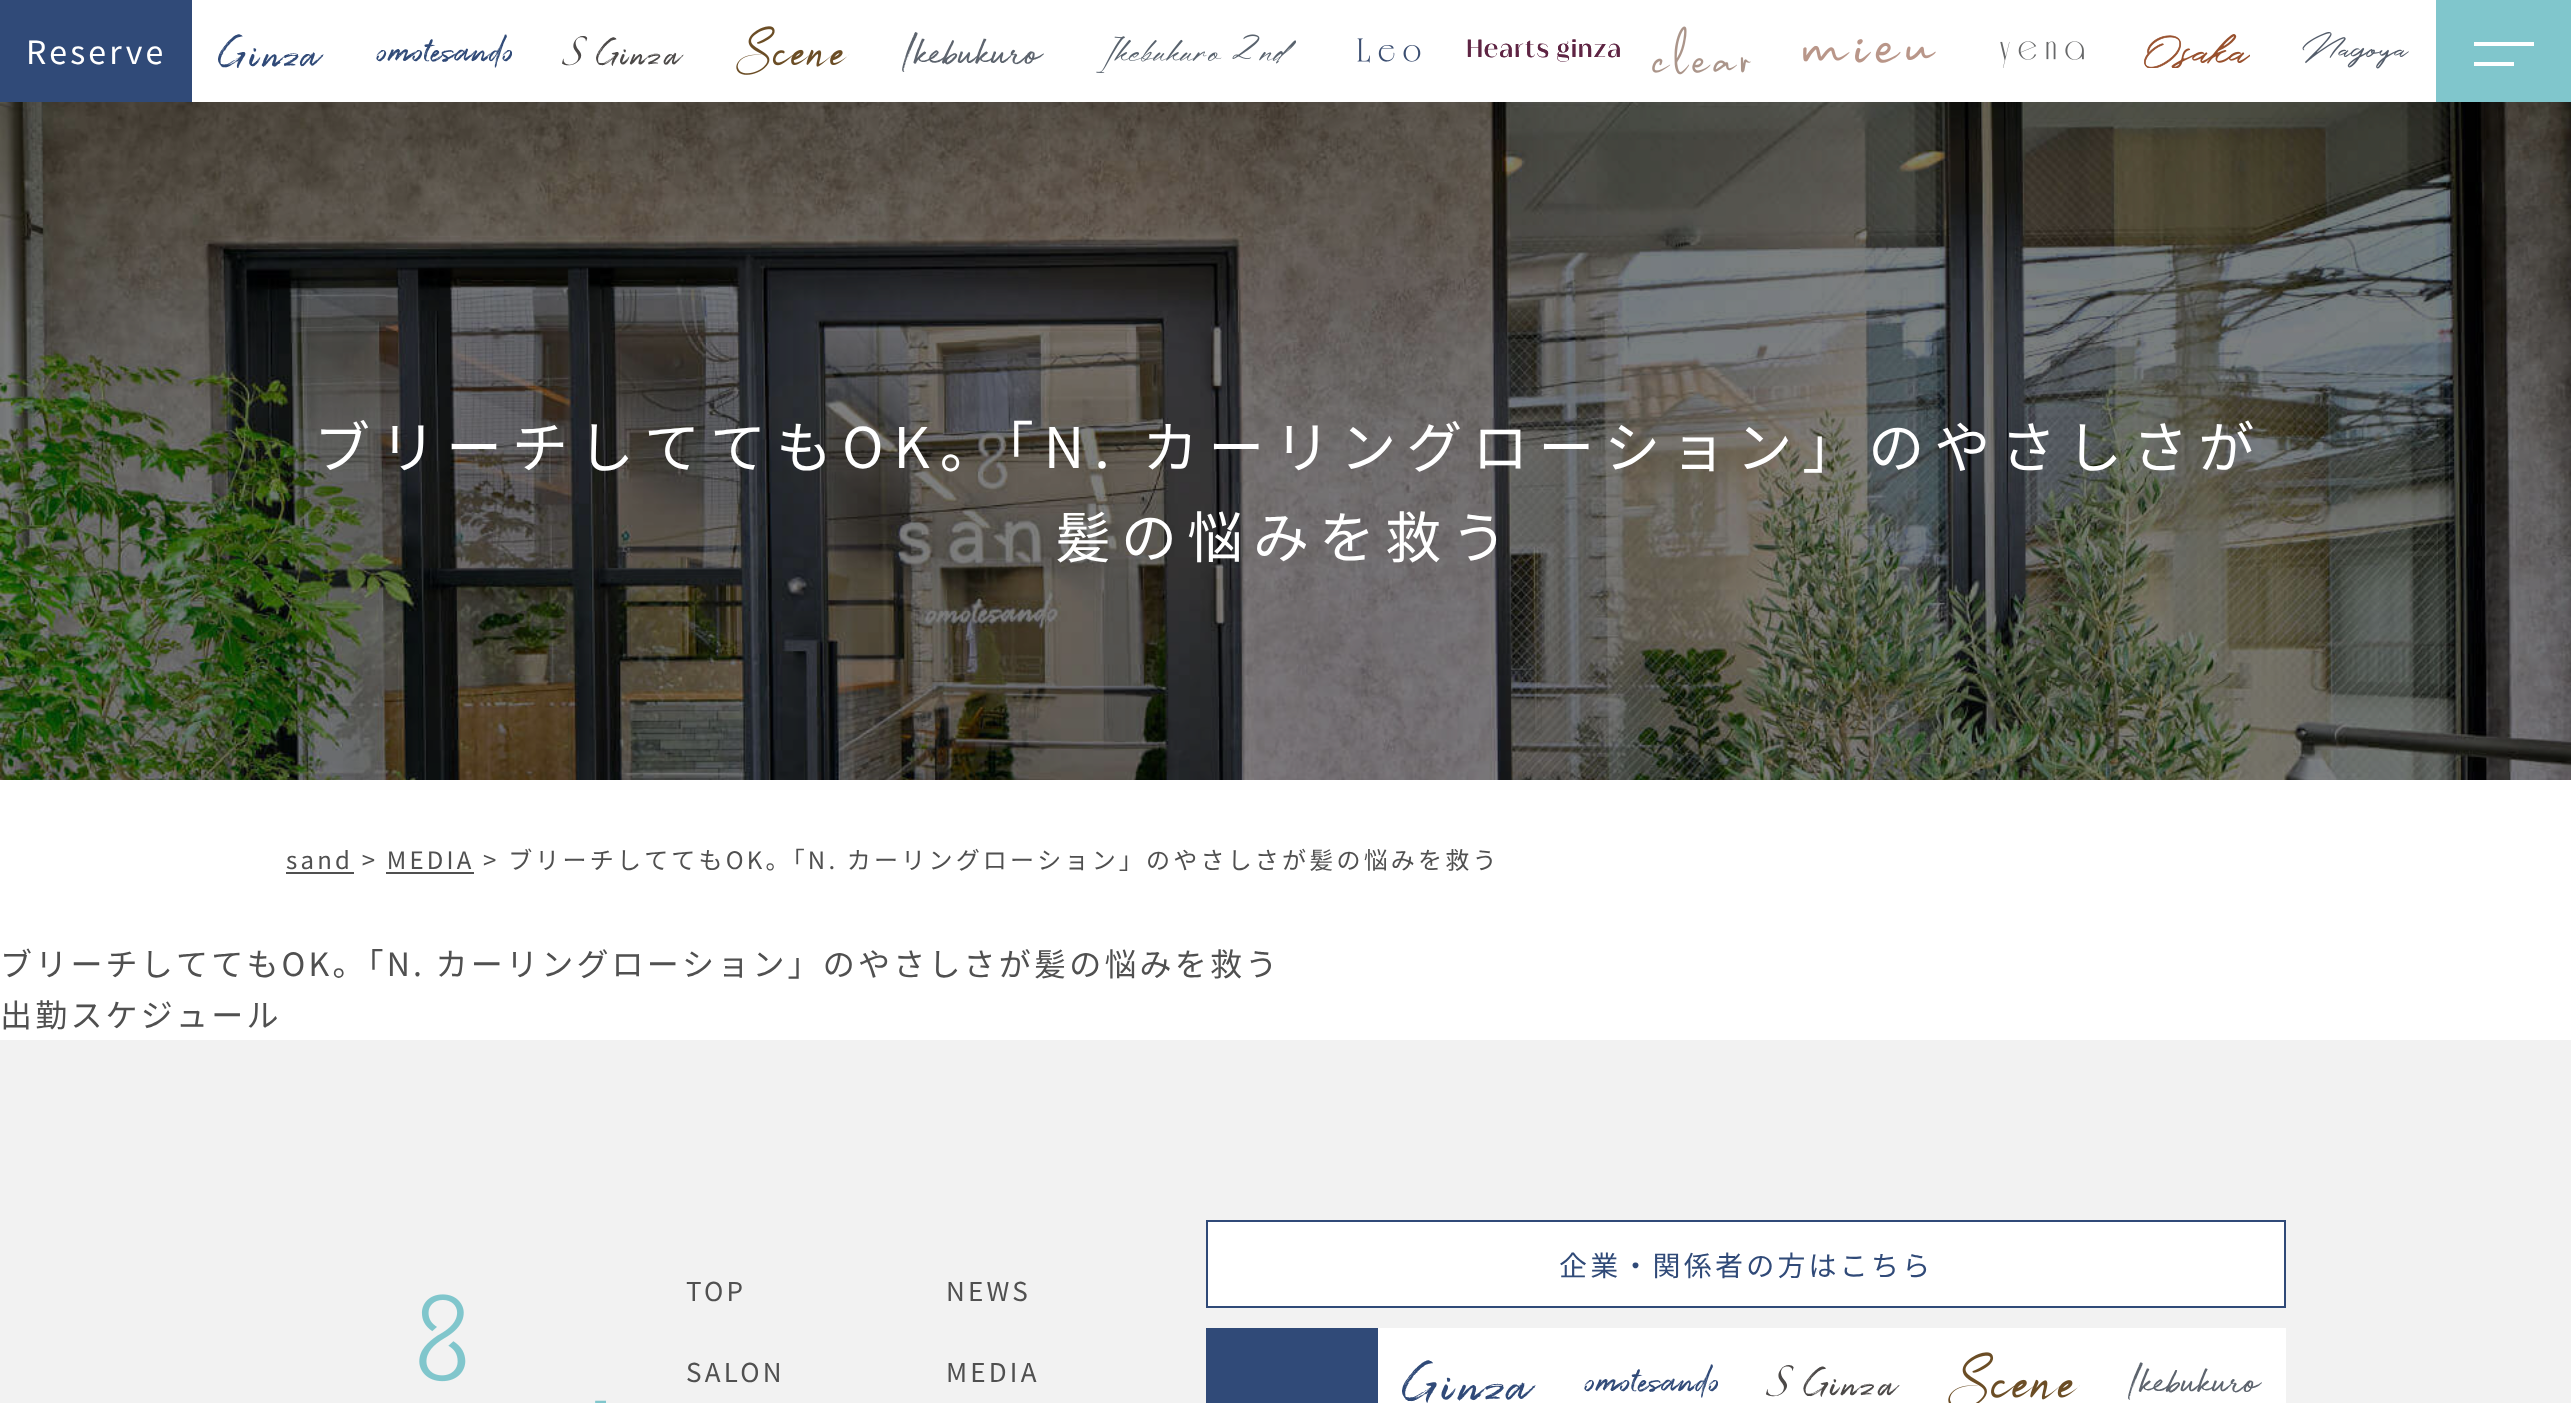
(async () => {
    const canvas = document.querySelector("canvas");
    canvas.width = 2571;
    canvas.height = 1403;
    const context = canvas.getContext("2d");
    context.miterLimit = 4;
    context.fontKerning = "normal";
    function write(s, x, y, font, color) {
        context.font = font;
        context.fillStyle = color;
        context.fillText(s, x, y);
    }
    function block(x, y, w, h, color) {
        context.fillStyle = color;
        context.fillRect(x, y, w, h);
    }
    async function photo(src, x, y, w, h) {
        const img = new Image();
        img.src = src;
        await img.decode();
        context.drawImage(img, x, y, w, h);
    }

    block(0, 0, 2571, 1403, "rgb(255, 255, 255)");
    block(0, 0, 192, 102, "rgb(48, 74, 120)");
    context.letterSpacing = "3.2px";
    write("Reserve", 26, 64, "32px Noto Sans JP", "rgb(255, 255, 255)");
    await photo("media/1.png", 218, 34, 106, 34);
    await photo("media/2.png", 376, 34, 136, 34);
    await photo("media/3.png", 562, 36, 122, 30);
    await photo("media/4.png", 736, 26, 114, 49);
    await photo("media/5.png", 902, 32, 142, 40);
    await photo("media/6.png", 1096, 34, 200, 39);
    await photo("media/7.png", 1357, 38, 64, 25);
    await photo("media/8.png", 1467, 39, 153, 23);
    await photo("media/9.png", 1652, 26, 99, 49);
    await photo("media/10.png", 1803, 39, 133, 24);
    await photo("media/11.png", 2000, 41, 84, 27);
    await photo("media/12.png", 2144, 34, 106, 34);
    await photo("media/13.png", 2302, 32, 107, 37);
    block(2436, 0, 135, 102, "rgb(128, 198, 204)");
    block(2474, 42, 60, 4, "rgb(255, 255, 255)");
    block(2474, 62, 40, 4, "rgb(255, 255, 255)");
    await photo("media/14.png", 0, 102, 2571, 678);
    context.letterSpacing = "10px";
    write("ブリーチしててもOK。「N. カーリングローション」のやさしさが", 314, 468, "56px Noto Sans JP", "rgb(255, 255, 255)");
    write("髪の悩みを救う", 1055, 558, "56px Noto Sans JP", "rgb(255, 255, 255)");
    context.letterSpacing = "3.2px";
    write("sand > MEDIA > ブリーチしててもOK。「N. カーリングローション」のやさしさが髪の悩みを救う", 286, 869, "24px Noto Sans JP", "rgb(80, 80, 80)");
    block(286, 872, 68, 2, "rgb(80, 80, 80)");
    block(386, 872, 88, 2, "rgb(80, 80, 80)");
    write("ブリーチしててもOK。「N. カーリングローション」のやさしさが髪の悩みを救う", 0, 976, "32px Noto Sans JP", "rgb(80, 80, 80)");
    write("出勤スケジュール", 0, 1027, "32px Noto Sans JP", "rgb(80, 80, 80)");
    block(0, 1040, 2571, 363, "rgb(242, 242, 242)");
    context.fillStyle = "rgb(255, 255, 255)";
    context.beginPath();
    context.rect(1207, 1221, 1078, 86);
    context.fill();
    context.strokeStyle = "rgb(48, 74, 120)";
    context.lineWidth = 2;
    context.stroke();
    write("企業・関係者の方はこちら", 1559, 1276, "28px Noto Sans JP", "rgb(48, 74, 120)");
    block(1206, 1328, 172, 75, "rgb(48, 74, 120)");
    block(1378, 1328, 908, 75, "rgb(255, 255, 255)");
    await photo("media/15.png", 1402, 1360, 134, 43);
    await photo("media/16.png", 1584, 1364, 134, 34);
    await photo("media/17.png", 1766, 1365, 134, 32);
    await photo("media/18.png", 1948, 1352, 132, 51);
    await photo("media/19.png", 2128, 1362, 134, 38);
    await photo("media/20.png", 419, 1294, 187, 109);
    write("TOP", 686, 1301, "26px Noto Sans JP", "rgb(80, 80, 80)");
    write("NEWS", 946, 1301, "26px Noto Sans JP", "rgb(80, 80, 80)");
    write("SALON", 686, 1382, "26px Noto Sans JP", "rgb(80, 80, 80)");
    write("MEDIA", 946, 1382, "26px Noto Sans JP", "rgb(80, 80, 80)");
})();
